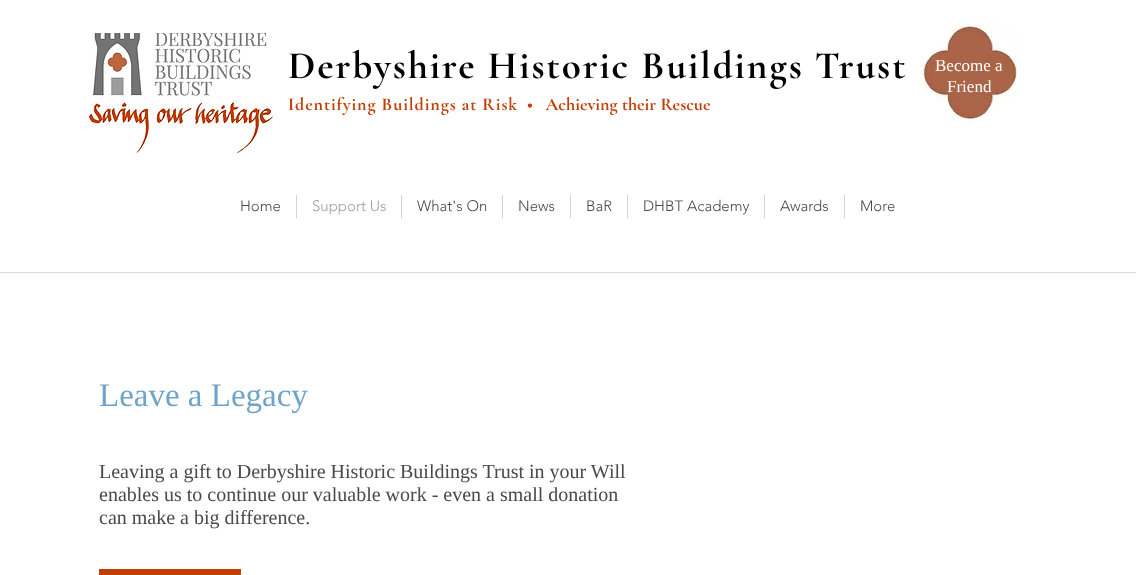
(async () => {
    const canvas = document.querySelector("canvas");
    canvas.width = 1136;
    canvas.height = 575;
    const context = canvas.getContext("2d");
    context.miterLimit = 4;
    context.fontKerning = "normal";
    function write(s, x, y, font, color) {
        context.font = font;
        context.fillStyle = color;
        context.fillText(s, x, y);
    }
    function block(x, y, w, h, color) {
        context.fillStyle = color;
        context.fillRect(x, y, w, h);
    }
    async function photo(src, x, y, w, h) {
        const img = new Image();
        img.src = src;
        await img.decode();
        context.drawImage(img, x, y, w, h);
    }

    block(0, 0, 1136, 575, "rgb(255, 255, 255)");
    await photo("media/1.png", 89, 33, 184, 120);
    context.letterSpacing = "1.95px";
    write("Derbyshire Historic Buildings Trust", 288, 78, "bold 39px Cormorant Garamond", "rgb(0, 0, 0)");
    context.letterSpacing = "0.9px";
    write("Identifying Buildings at Risk", 288, 110, "bold 18px Cormorant Garamond", "rgb(194, 62, 6)");
    context.letterSpacing = "0px";
    write("•   Achieving their Rescue", 527, 110, "bold 18px Cormorant Garamond", "rgb(194, 62, 6)");
    await photo("media/2.png", 921, 21, 97, 104);
    write("Become a", 935, 71, "17px Liberation Serif", "rgb(255, 255, 255)");
    write("Friend", 947, 92, "17px Liberation Serif", "rgb(255, 255, 255)");
    write("Home", 240, 211, "300 15px 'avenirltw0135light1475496'", "rgb(72, 73, 74)");
    block(296, 195, 1, 23, "rgb(211, 211, 212)");
    write("Support Us", 312, 211, "300 15px 'avenirltw0135light1475496'", "rgb(160, 160, 159)");
    block(401, 195, 1, 23, "rgb(211, 211, 212)");
    write("What's On", 417, 211, "300 15px 'avenirltw0135light1475496'", "rgb(72, 73, 74)");
    block(502, 195, 1, 23, "rgb(211, 211, 212)");
    write("News", 518, 211, "300 15px 'avenirltw0135light1475496'", "rgb(72, 73, 74)");
    block(570, 195, 1, 23, "rgb(211, 211, 212)");
    write("BaR", 586, 211, "300 15px 'avenirltw0135light1475496'", "rgb(72, 73, 74)");
    block(627, 195, 1, 23, "rgb(211, 211, 212)");
    write("DHBT Academy", 643, 211, "300 15px 'avenirltw0135light1475496'", "rgb(72, 73, 74)");
    block(764, 195, 1, 23, "rgb(211, 211, 212)");
    write("Awards", 780, 211, "300 15px 'avenirltw0135light1475496'", "rgb(72, 73, 74)");
    block(844, 195, 1, 23, "rgb(211, 211, 212)");
    write("More", 860, 211, "300 15px 'avenirltw0135light1475496'", "rgb(72, 73, 74)");
    block(0, 272, 1136, 1, "rgb(219, 219, 219)");
    write("Leave a Legacy", 99, 406, "33px Liberation Serif", "rgb(110, 164, 202)");
    write("Leaving a gift to Derbyshire Historic Buildings Trust in your Will", 99, 478, "20px Liberation Serif", "rgb(72, 73, 74)");
    write("enables us to continue our valuable work - even a small donation", 99, 501, "20px Liberation Serif", "rgb(72, 73, 74)");
    write("can make a big difference.", 99, 524, "20px Liberation Serif", "rgb(72, 73, 74)");
    block(99, 569, 142, 6, "rgb(194, 62, 6)");
})();
